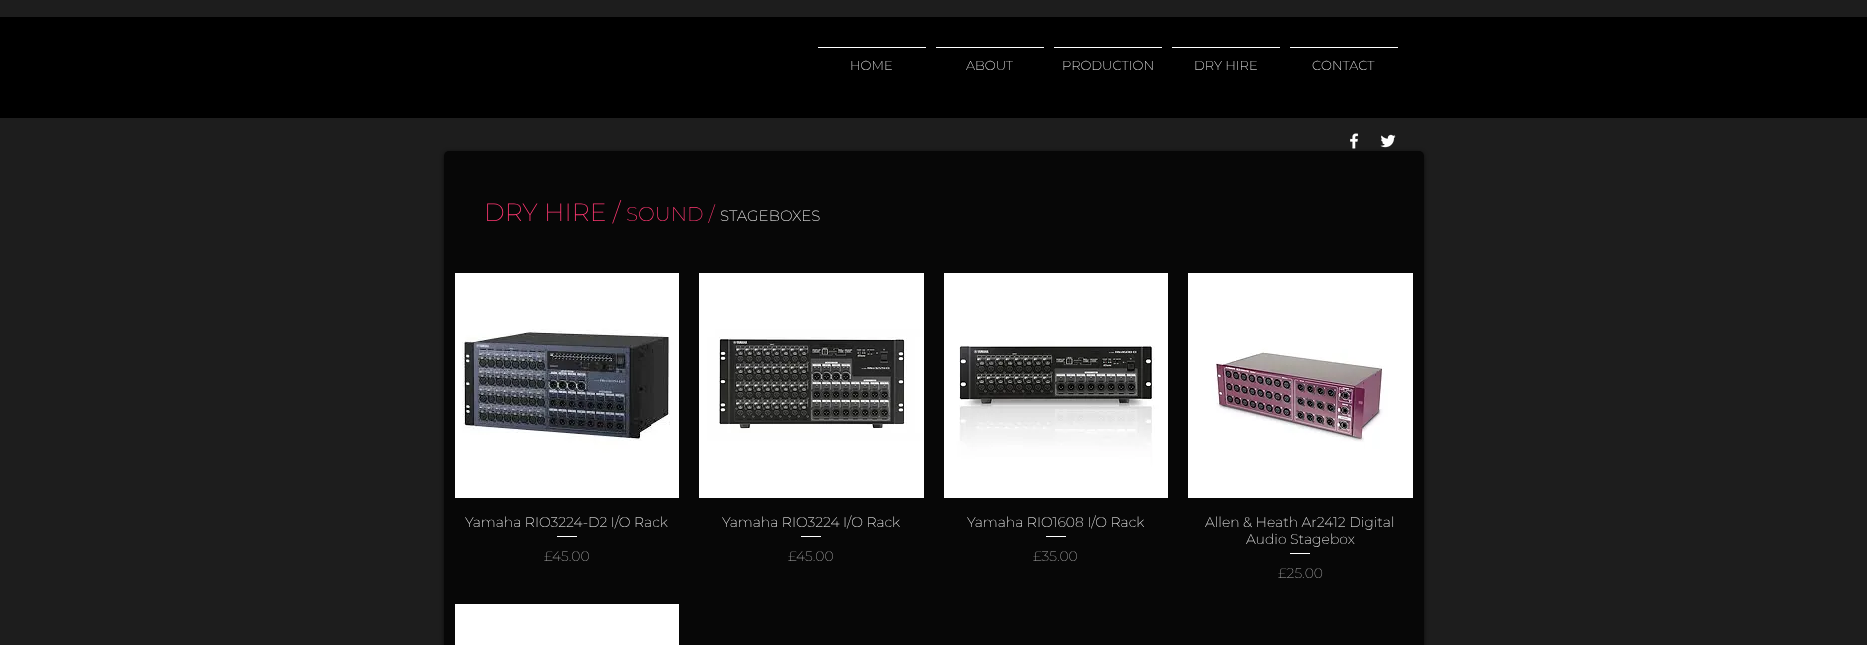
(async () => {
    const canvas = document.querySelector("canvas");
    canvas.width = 1867;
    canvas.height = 645;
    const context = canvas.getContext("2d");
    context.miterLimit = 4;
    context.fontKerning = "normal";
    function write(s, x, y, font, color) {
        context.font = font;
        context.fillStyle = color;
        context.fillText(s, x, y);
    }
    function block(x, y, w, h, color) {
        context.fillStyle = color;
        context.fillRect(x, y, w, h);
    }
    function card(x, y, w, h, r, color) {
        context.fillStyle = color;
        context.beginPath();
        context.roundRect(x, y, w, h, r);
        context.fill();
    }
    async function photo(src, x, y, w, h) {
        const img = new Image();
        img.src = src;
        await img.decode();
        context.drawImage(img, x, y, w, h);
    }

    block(0, 0, 1867, 645, "rgb(29, 29, 29)");
    block(0, 17, 1867, 101, "rgb(0, 0, 0)");
    block(818, 47, 108, 1, "rgb(255, 255, 255)");
    write("HOME", 850, 70, "200 13px Montserrat", "rgb(255, 255, 255)");
    block(936, 47, 108, 1, "rgb(255, 255, 255)");
    write("ABOUT", 966, 70, "200 13px Montserrat", "rgb(255, 255, 255)");
    block(1054, 47, 108, 1, "rgb(255, 255, 255)");
    write("PRODUCTION", 1062, 70, "200 13px Montserrat", "rgb(255, 255, 255)");
    block(1172, 47, 108, 1, "rgb(255, 255, 255)");
    write("DRY HIRE", 1194, 70, "200 13px Montserrat", "rgb(255, 255, 255)");
    block(1290, 47, 108, 1, "rgb(255, 255, 255)");
    write("CONTACT", 1312, 70, "200 13px Montserrat", "rgb(255, 255, 255)");
    await photo("media/1.png", 1350, 133, 9, 16);
    await photo("media/2.png", 1380, 134, 16, 14);
    context.fillStyle = "rgba(0, 0, 0, 0.6)";
    context.filter = "blur(2px)";
    context.beginPath();
    context.roundRect(444, 152, 980, 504, 5);
    context.fill();
    context.filter = "none";
    card(444, 151, 980, 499, 5, "rgb(7, 7, 7)");
    write("DRY HIRE /", 484, 221, "200 25px Montserrat", "rgb(255, 56, 114)");
    write("SOUND /", 626, 221, "200 20px Montserrat", "rgb(255, 56, 114)");
    write("STAGEBOXES", 720, 221, "200 15px Montserrat", "rgb(255, 255, 255)");
    await photo("media/3.png", 455, 273, 224, 225);
    write("Yamaha RIO3224-D2 I/O Rack", 465, 527, "200 14px Montserrat", "rgb(255, 255, 255)");
    block(557, 536, 20, 1, "rgb(255, 255, 255)");
    write("£45.00", 544, 561, "200 14px Montserrat", "rgb(168, 168, 168)");
    await photo("media/4.png", 699, 273, 225, 225);
    write("Yamaha RIO3224 I/O Rack", 722, 527, "200 14px Montserrat", "rgb(255, 255, 255)");
    block(801, 536, 20, 1, "rgb(255, 255, 255)");
    write("£45.00", 788, 561, "200 14px Montserrat", "rgb(168, 168, 168)");
    await photo("media/5.png", 944, 273, 224, 225);
    write("Yamaha RIO1608 I/O Rack", 967, 527, "200 14px Montserrat", "rgb(255, 255, 255)");
    block(1046, 536, 20, 1, "rgb(255, 255, 255)");
    write("£35.00", 1033, 561, "200 14px Montserrat", "rgb(168, 168, 168)");
    await photo("media/6.png", 1188, 273, 225, 225);
    write("Allen & Heath Ar2412 Digital", 1205, 527, "200 14px Montserrat", "rgb(255, 255, 255)");
    write("Audio Stagebox", 1246, 544, "200 14px Montserrat", "rgb(255, 255, 255)");
    block(1290, 553, 20, 1, "rgb(255, 255, 255)");
    write("£25.00", 1278, 578, "200 14px Montserrat", "rgb(168, 168, 168)");
    block(455, 604, 224, 41, "rgb(255, 255, 255)");
})();
